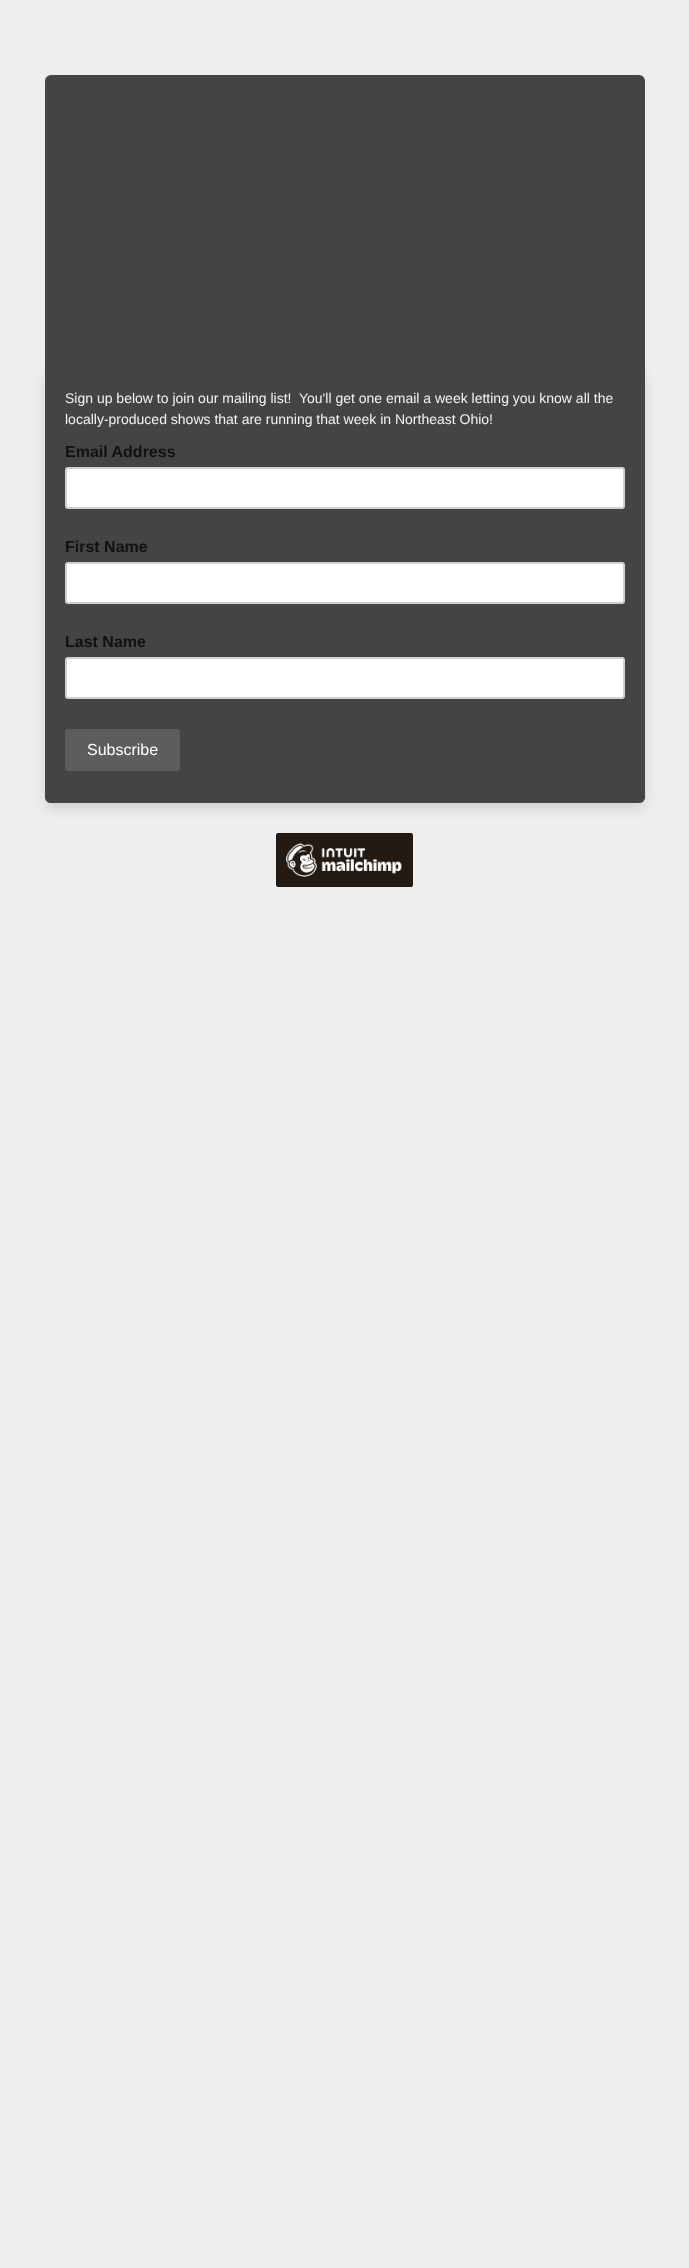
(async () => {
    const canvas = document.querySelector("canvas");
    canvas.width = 689;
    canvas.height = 2268;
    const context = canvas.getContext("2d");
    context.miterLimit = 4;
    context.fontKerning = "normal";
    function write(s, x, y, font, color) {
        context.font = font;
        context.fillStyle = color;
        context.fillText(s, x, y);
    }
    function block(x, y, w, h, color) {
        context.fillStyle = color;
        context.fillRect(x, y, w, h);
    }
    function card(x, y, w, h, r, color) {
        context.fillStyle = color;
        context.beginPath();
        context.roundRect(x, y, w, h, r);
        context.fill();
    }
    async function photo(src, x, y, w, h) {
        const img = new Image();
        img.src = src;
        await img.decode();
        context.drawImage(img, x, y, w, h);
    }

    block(0, 0, 689, 2268, "rgb(238, 238, 238)");
    card(45, 75, 600, 728, 6, "rgb(68, 68, 68)");
    context.fillStyle = "rgba(13, 18, 22, 0.12)";
    context.filter = "blur(6px)";
    context.beginPath();
    context.roundRect(45, 374, 600, 435, 6);
    context.fill();
    context.filter = "none";
    card(45, 368, 600, 435, 6, "rgb(68, 68, 68)");
    write("Sign up below to join our mailing list!  You'll get one email a week letting you know all the", 65, 403, "14px Liberation Sans", "rgb(243, 243, 243)");
    write("locally-produced shows that are running that week in Northeast Ohio!", 65, 424, "14px Liberation Sans", "rgb(243, 243, 243)");
    write("Email Address", 65, 457, "bold 16px Liberation Sans", "rgb(17, 17, 17)");
    context.fillStyle = "rgb(255, 255, 255)";
    context.beginPath();
    context.roundRect(66, 468, 558, 40, 2);
    context.fill();
    context.strokeStyle = "rgb(208, 208, 208)";
    context.lineWidth = 2;
    context.stroke();
    write("First Name", 65, 552, "bold 16px Liberation Sans", "rgb(17, 17, 17)");
    context.fillStyle = "rgb(255, 255, 255)";
    context.beginPath();
    context.roundRect(66, 563, 558, 40, 2);
    context.fill();
    context.stroke();
    write("Last Name", 65, 647, "bold 16px Liberation Sans", "rgb(17, 17, 17)");
    context.fillStyle = "rgb(255, 255, 255)";
    context.beginPath();
    context.roundRect(66, 658, 558, 40, 2);
    context.fill();
    context.stroke();
    card(65, 729, 115, 42, 3, "rgb(93, 93, 93)");
    write("Subscribe", 87, 755, "16px Liberation Sans", "rgb(255, 255, 255)");
    await photo("media/1.png", 276, 833, 137, 54);
})();
